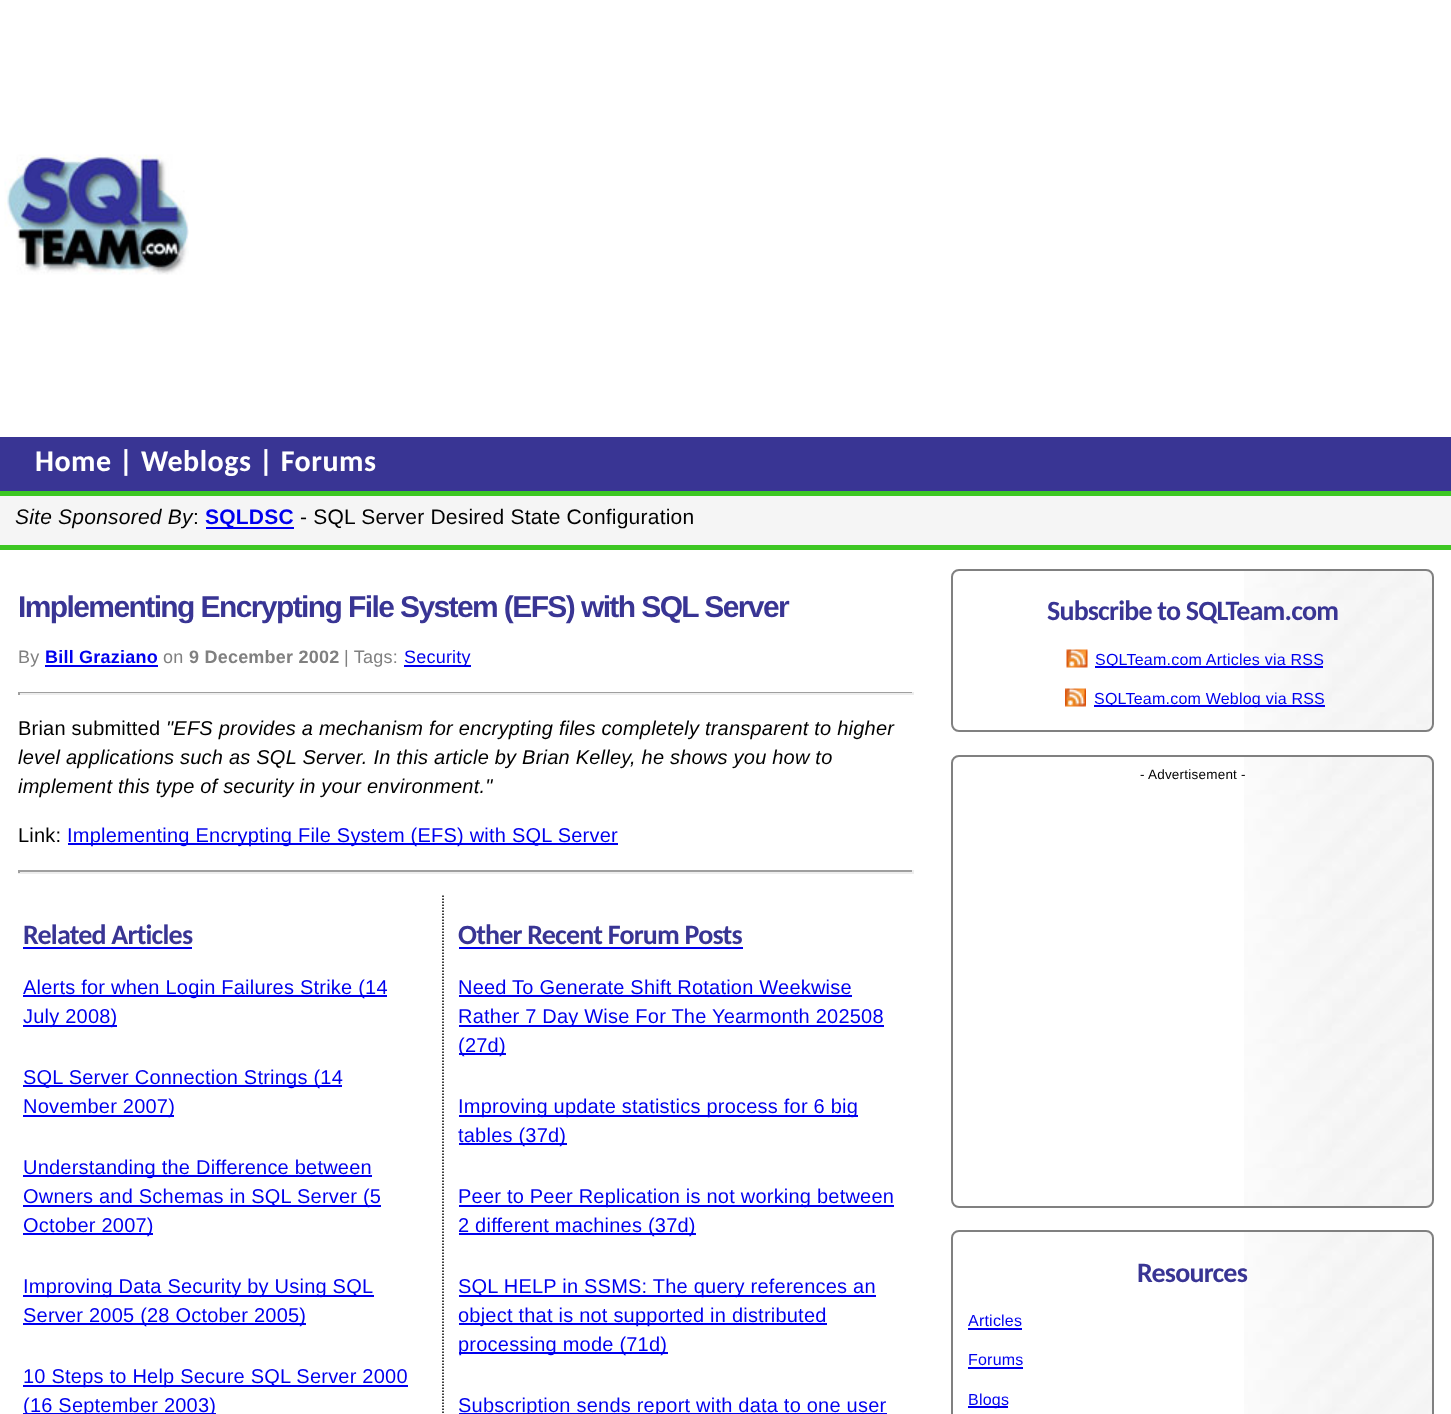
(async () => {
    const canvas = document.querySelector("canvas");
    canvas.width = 1451;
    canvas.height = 1414;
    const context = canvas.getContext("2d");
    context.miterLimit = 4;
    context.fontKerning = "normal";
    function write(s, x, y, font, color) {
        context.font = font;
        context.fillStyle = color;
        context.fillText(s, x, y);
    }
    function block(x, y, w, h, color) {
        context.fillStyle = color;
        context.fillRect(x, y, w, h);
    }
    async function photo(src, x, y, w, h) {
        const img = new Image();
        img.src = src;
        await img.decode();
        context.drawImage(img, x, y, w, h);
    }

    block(0, 0, 1451, 1414, "rgb(255, 255, 255)");
    await photo("media/1.png", 4, 154, 185, 121);
    block(0, 437, 1451, 54, "rgb(57, 53, 148)");
    context.letterSpacing = "0.5px";
    write("Home | Weblogs | Forums", 35, 471, "bold 30px Carlito", "rgb(255, 255, 255)");
    block(0, 496, 1451, 49, "rgb(245, 245, 245)");
    block(0, 491, 1451, 5, "rgb(61, 199, 35)");
    block(0, 545, 1451, 5, "rgb(61, 199, 35)");
    context.letterSpacing = "0.22px";
    write("Site Sponsored By", 15, 524, "italic 21px Liberation Sans", "rgb(0, 0, 0)");
    write(":", 193, 524, "21px Liberation Sans", "rgb(0, 0, 0)");
    block(206, 527, 88, 2, "rgb(0, 0, 238)");
    write("SQLDSC", 205, 524, "bold 21px Liberation Sans", "rgb(0, 0, 238)");
    write("- SQL Server Desired State Configuration", 300, 524, "21px Liberation Sans", "rgb(0, 0, 0)");
    context.letterSpacing = "-1.6px";
    write("Implementing Encrypting File System (EFS) with SQL Server", 18, 617, "bold 30px Liberation Sans", "rgb(57, 53, 148)");
    context.letterSpacing = "0.22px";
    write("By", 18, 663, "18px Liberation Sans", "rgb(128, 128, 128)");
    write("Bill Graziano", 45, 663, "bold 18px Liberation Sans", "rgb(0, 0, 238)");
    block(45, 665, 113, 2, "rgb(0, 0, 238)");
    write("on", 163, 663, "18px Liberation Sans", "rgb(128, 128, 128)");
    write("9 December 2002", 189, 663, "bold 18px Liberation Sans", "rgb(128, 128, 128)");
    write("| Tags:", 344, 663, "18px Liberation Sans", "rgb(128, 128, 128)");
    block(404, 665, 67, 2, "rgb(0, 0, 238)");
    write("Security", 404, 663, "18px Liberation Sans", "rgb(0, 0, 238)");
    block(18, 692, 896, 1, "rgb(159, 159, 159)");
    block(912, 692, 2, 3, "rgb(238, 238, 238)");
    block(18, 693, 896, 2, "rgb(238, 238, 238)");
    block(18, 692, 2, 3, "rgb(159, 159, 159)");
    write("Brian submitted", 18, 735, "20px Liberation Sans", "rgb(0, 0, 0)");
    write("\"EFS provides a mechanism for encrypting files completely transparent to higher", 166, 735, "italic 20px Liberation Sans", "rgb(0, 0, 0)");
    write("level applications such as SQL Server. In this article by Brian Kelley, he shows you how to", 18, 764, "italic 20px Liberation Sans", "rgb(0, 0, 0)");
    write("implement this type of security in your environment.\"", 18, 793, "italic 20px Liberation Sans", "rgb(0, 0, 0)");
    write("Link:", 18, 842, "20px Liberation Sans", "rgb(0, 0, 0)");
    block(68, 843, 550, 2, "rgb(0, 0, 238)");
    write("Implementing Encrypting File System (EFS) with SQL Server", 67, 842, "20px Liberation Sans", "rgb(0, 0, 238)");
    block(18, 870, 896, 2, "rgb(159, 159, 159)");
    block(912, 870, 2, 3, "rgb(238, 238, 238)");
    block(18, 872, 896, 2, "rgb(238, 238, 238)");
    block(18, 870, 2, 3, "rgb(159, 159, 159)");
    context.letterSpacing = "-0.8px";
    write("Related Articles", 23, 944, "bold 28px Carlito", "rgb(57, 53, 148)");
    block(23, 947, 169, 2, "rgb(0, 0, 238)");
    block(23, 995, 364, 2, "rgb(0, 0, 238)");
    context.letterSpacing = "0.22px";
    write("Alerts for when Login Failures Strike (14", 23, 994, "20px Liberation Sans", "rgb(0, 0, 238)");
    block(23, 1025, 94, 2, "rgb(0, 0, 238)");
    write("July 2008)", 23, 1023, "20px Liberation Sans", "rgb(0, 0, 238)");
    block(23, 1085, 319, 2, "rgb(0, 0, 238)");
    write("SQL Server Connection Strings (14", 23, 1084, "20px Liberation Sans", "rgb(0, 0, 238)");
    block(23, 1115, 151, 2, "rgb(0, 0, 238)");
    write("November 2007)", 23, 1113, "20px Liberation Sans", "rgb(0, 0, 238)");
    block(23, 1175, 349, 2, "rgb(0, 0, 238)");
    write("Understanding the Difference between", 23, 1174, "20px Liberation Sans", "rgb(0, 0, 238)");
    block(23, 1205, 358, 2, "rgb(0, 0, 238)");
    write("Owners and Schemas in SQL Server (5", 23, 1203, "20px Liberation Sans", "rgb(0, 0, 238)");
    block(23, 1233, 130, 2, "rgb(0, 0, 238)");
    write("October 2007)", 23, 1232, "20px Liberation Sans", "rgb(0, 0, 238)");
    block(23, 1295, 351, 2, "rgb(0, 0, 238)");
    write("Improving Data Security by Using SQL", 23, 1293, "20px Liberation Sans", "rgb(0, 0, 238)");
    block(23, 1323, 283, 2, "rgb(0, 0, 238)");
    write("Server 2005 (28 October 2005)", 23, 1322, "20px Liberation Sans", "rgb(0, 0, 238)");
    block(23, 1385, 385, 2, "rgb(0, 0, 238)");
    write("10 Steps to Help Secure SQL Server 2000", 23, 1383, "20px Liberation Sans", "rgb(0, 0, 238)");
    block(23, 1413, 193, 1, "rgb(0, 0, 238)");
    write("(16 September 2003)", 23, 1412, "20px Liberation Sans", "rgb(0, 0, 238)");
    context.beginPath();
    context.moveTo(443, 895.5);
    context.lineTo(443, 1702.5);
    context.strokeStyle = "rgb(0, 0, 0)";
    context.lineWidth = 1.5;
    context.setLineDash([1.5, 1.5]);
    context.stroke();
    context.letterSpacing = "-0.8px";
    write("Other Recent Forum Posts", 458, 944, "bold 28px Carlito", "rgb(57, 53, 148)");
    block(459, 947, 284, 2, "rgb(0, 0, 238)");
    context.letterSpacing = "0.22px";
    write("Need To Generate Shift Rotation Weekwise", 458, 994, "20px Liberation Sans", "rgb(0, 0, 238)");
    block(459, 995, 393, 2, "rgb(0, 0, 238)");
    block(459, 1025, 425, 2, "rgb(0, 0, 238)");
    write("Rather 7 Day Wise For The Yearmonth 202508", 458, 1023, "20px Liberation Sans", "rgb(0, 0, 238)");
    block(459, 1053, 47, 2, "rgb(0, 0, 238)");
    write("(27d)", 458, 1052, "20px Liberation Sans", "rgb(0, 0, 238)");
    block(459, 1115, 399, 2, "rgb(0, 0, 238)");
    write("Improving update statistics process for 6 big", 458, 1113, "20px Liberation Sans", "rgb(0, 0, 238)");
    block(459, 1143, 108, 2, "rgb(0, 0, 238)");
    write("tables (37d)", 458, 1142, "20px Liberation Sans", "rgb(0, 0, 238)");
    block(459, 1205, 435, 2, "rgb(0, 0, 238)");
    write("Peer to Peer Replication is not working between", 458, 1203, "20px Liberation Sans", "rgb(0, 0, 238)");
    block(459, 1233, 237, 2, "rgb(0, 0, 238)");
    write("2 different machines (37d)", 458, 1232, "20px Liberation Sans", "rgb(0, 0, 238)");
    block(459, 1295, 417, 2, "rgb(0, 0, 238)");
    write("SQL HELP in SSMS: The query references an", 458, 1293, "20px Liberation Sans", "rgb(0, 0, 238)");
    block(459, 1323, 368, 2, "rgb(0, 0, 238)");
    write("object that is not supported in distributed", 458, 1322, "20px Liberation Sans", "rgb(0, 0, 238)");
    block(459, 1352, 209, 2, "rgb(0, 0, 238)");
    write("processing mode (71d)", 458, 1351, "20px Liberation Sans", "rgb(0, 0, 238)");
    block(459, 1413, 428, 1, "rgb(0, 0, 238)");
    write("Subscription sends report with data to one user", 458, 1412, "20px Liberation Sans", "rgb(0, 0, 238)");
    await photo("media/2.png", 1244, 569, 189, 163);
    context.beginPath();
    context.roundRect(952, 570, 481, 161, 7);
    context.strokeStyle = "rgb(128, 128, 128)";
    context.lineWidth = 2;
    context.setLineDash([]);
    context.stroke();
    context.letterSpacing = "-0.8px";
    write("Subscribe to SQLTeam.com", 1047, 620, "bold 28px Carlito", "rgb(57, 53, 148)");
    await photo("media/3.png", 1066, 649, 22, 19);
    block(1095, 666, 228, 2, "rgb(0, 0, 238)");
    context.letterSpacing = "0.22px";
    write("SQLTeam.com Articles via RSS", 1095, 665, "16px Liberation Sans", "rgb(0, 0, 238)");
    await photo("media/4.png", 1065, 688, 21, 19);
    block(1094, 705, 231, 2, "rgb(0, 0, 238)");
    write("SQLTeam.com Weblog via RSS", 1094, 704, "16px Liberation Sans", "rgb(0, 0, 238)");
    await photo("media/5.png", 1244, 755, 189, 452);
    context.beginPath();
    context.roundRect(952, 756, 481, 451, 7);
    context.stroke();
    write("- Advertisement -", 1140, 779, "13.5px Liberation Sans", "rgb(0, 0, 0)");
    await photo("media/6.png", 1244, 1230, 189, 184);
    context.beginPath();
    context.roundRect(952, 1231, 481, 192, 7);
    context.stroke();
    context.letterSpacing = "-0.8px";
    write("Resources", 1137, 1282, "bold 28px Carlito", "rgb(57, 53, 148)");
    context.letterSpacing = "0.22px";
    write("Articles", 968, 1326, "16px Liberation Sans", "rgb(0, 0, 238)");
    block(968, 1328, 54, 2, "rgb(0, 0, 238)");
    write("Forums", 968, 1365, "16px Liberation Sans", "rgb(0, 0, 238)");
    block(968, 1367, 55, 2, "rgb(0, 0, 238)");
    block(968, 1406, 40, 2, "rgb(0, 0, 238)");
    write("Blogs", 968, 1405, "16px Liberation Sans", "rgb(0, 0, 238)");
})();
